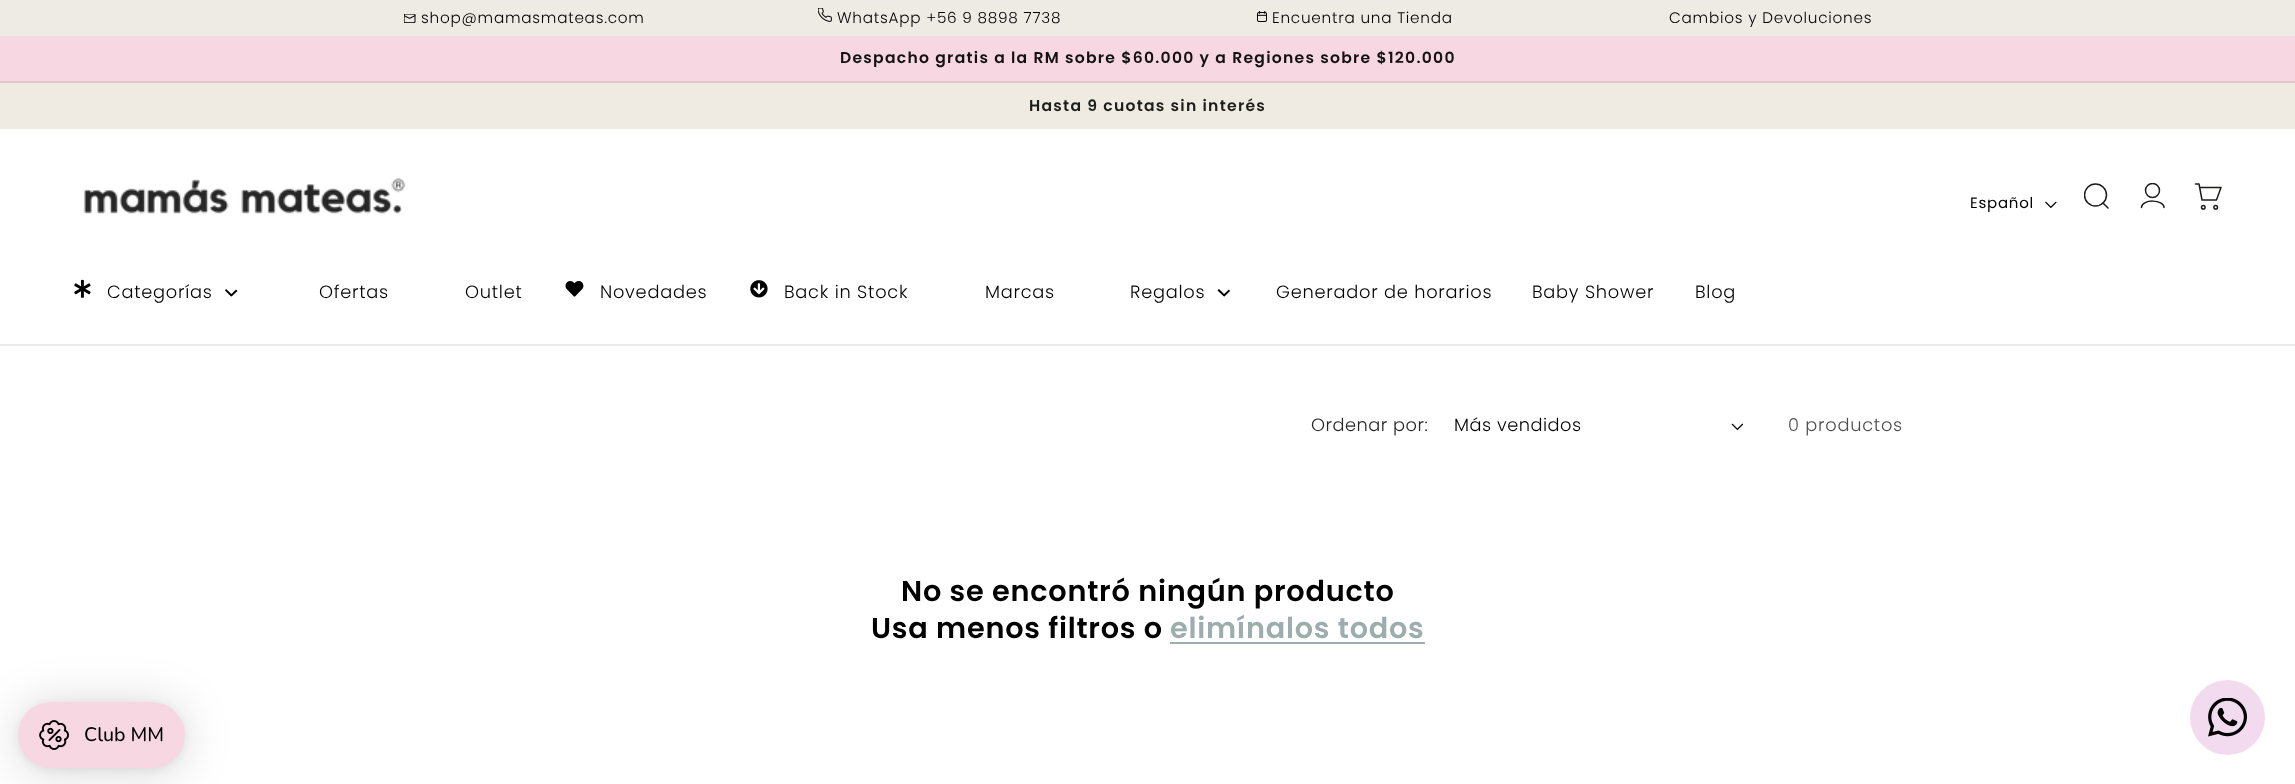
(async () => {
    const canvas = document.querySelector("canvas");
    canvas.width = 2295;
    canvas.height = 784;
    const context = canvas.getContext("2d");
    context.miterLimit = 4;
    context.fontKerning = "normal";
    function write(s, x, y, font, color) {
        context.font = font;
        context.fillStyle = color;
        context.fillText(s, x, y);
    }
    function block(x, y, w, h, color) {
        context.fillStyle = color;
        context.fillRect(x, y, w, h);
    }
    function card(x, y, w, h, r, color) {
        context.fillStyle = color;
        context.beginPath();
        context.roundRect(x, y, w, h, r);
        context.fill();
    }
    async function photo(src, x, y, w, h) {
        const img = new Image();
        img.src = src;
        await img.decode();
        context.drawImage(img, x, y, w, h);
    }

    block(0, 0, 2295, 784, "rgb(255, 255, 255)");
    block(0, 0, 2295, 36, "rgb(237, 235, 228)");
    await photo("media/1.png", 404, 14, 12, 9);
    context.letterSpacing = "0.75px";
    write("shop@mamasmateas.com", 421, 23, "300 15.25px Poppins", "rgb(0, 0, 0)");
    await photo("media/2.png", 818, 8, 14, 14);
    write("WhatsApp +56 9 8898 7738", 837, 23, "300 15.25px Poppins", "rgb(0, 0, 0)");
    await photo("media/3.png", 1257, 11, 10, 11);
    write("Encuentra una Tienda", 1272, 23, "300 15.25px Poppins", "rgb(0, 0, 0)");
    write("Cambios y Devoluciones", 1669, 23, "300 15.25px Poppins", "rgb(0, 0, 0)");
    block(0, 36, 2295, 45, "rgb(247, 215, 225)");
    block(0, 81, 2295, 2, "rgb(229, 199, 208)");
    context.letterSpacing = "1.27px";
    write("Despacho gratis a la RM sobre $60.000 y a Regiones sobre $120.000", 840, 63, "600 15.6px Poppins", "rgb(18, 18, 18)");
    block(0, 83, 2295, 46, "rgb(239, 235, 226)");
    write("Hasta 9 cuotas sin interés", 1029, 111, "600 15.6px Poppins", "rgb(29, 29, 27)");
    block(0, 344, 2295, 2, "rgb(235, 235, 235)");
    await photo("media/4.png", 83, 178, 323, 36);
    context.letterSpacing = "0.75px";
    write("Español", 1970, 208, "15px Poppins", "rgb(0, 0, 0)");
    await photo("media/5.png", 2045, 201, 12, 7);
    context.save();
    context.beginPath();
    context.rect(2084, 183, 25, 26);
    context.clip();
    context.beginPath();
    context.arc(2095.5, 195, 11, 0, Math.PI * 2);
    context.strokeStyle = "rgb(29, 29, 27)";
    context.lineWidth = 1.5;
    context.stroke();
    context.restore();
    context.beginPath();
    context.moveTo(2108, 208);
    context.lineTo(2103, 203);
    context.strokeStyle = "rgb(29, 29, 27)";
    context.lineWidth = 1.5;
    context.lineCap = "round";
    context.stroke();
    context.save();
    context.beginPath();
    context.rect(2141, 183, 24, 26);
    context.clip();
    context.beginPath();
    context.arc(2152.5, 190.5, 7, 0, Math.PI * 2);
    context.stroke();
    context.restore();
    context.beginPath();
    context.moveTo(2141.5, 207.5);
    context.bezierCurveTo(2142, 198.5, 2164, 199.5, 2164, 207.5);
    context.stroke();
    context.beginPath();
    context.arc(2203.3, 207.3, 1.8, 0, Math.PI * 2);
    context.stroke();
    context.beginPath();
    context.arc(2215.7, 207.3, 1.8, 0, Math.PI * 2);
    context.stroke();
    context.beginPath();
    context.moveTo(2195.5, 184);
    context.lineTo(2199, 184);
    context.lineTo(2202, 200);
    context.lineTo(2216.5, 200);
    context.lineTo(2221, 187.5);
    context.lineTo(2200.5, 187.5);
    context.lineJoin = "round";
    context.stroke();
    await photo("media/6.png", 74, 279, 17, 19);
    write("Categorías", 107, 298, "300 17.8px Poppins", "rgb(0, 0, 0)");
    context.beginPath();
    context.moveTo(236, 289.5);
    context.lineTo(237.5, 291);
    context.lineTo(231.5, 296.5);
    context.lineTo(230.5, 295);
    context.closePath();
    context.fill();
    context.beginPath();
    context.moveTo(226, 289);
    context.lineTo(232.5, 295);
    context.lineTo(231, 296.5);
    context.lineTo(225, 290.5);
    context.closePath();
    context.fill();
    write("Ofertas", 319, 298, "300 17.8px Poppins", "rgb(0, 0, 0)");
    write("Outlet", 465, 298, "300 17.8px Poppins", "rgb(0, 0, 0)");
    await photo("media/7.png", 565, 281, 19, 16);
    write("Novedades", 600, 298, "300 17.8px Poppins", "rgb(0, 0, 0)");
    await photo("media/8.png", 750, 280, 18, 18);
    write("Back in Stock", 784, 298, "300 17.8px Poppins", "rgb(0, 0, 0)");
    write("Marcas", 985, 298, "300 17.8px Poppins", "rgb(0, 0, 0)");
    write("Regalos", 1130, 298, "300 17.8px Poppins", "rgb(0, 0, 0)");
    context.beginPath();
    context.moveTo(1229, 289.5);
    context.lineTo(1230, 291);
    context.lineTo(1224.5, 296.5);
    context.lineTo(1223, 295);
    context.closePath();
    context.fill();
    context.beginPath();
    context.moveTo(1219, 289);
    context.lineTo(1225, 295);
    context.lineTo(1224, 296.5);
    context.lineTo(1217.5, 290.5);
    context.closePath();
    context.fill();
    write("Generador de horarios", 1276, 298, "300 17.8px Poppins", "rgb(0, 0, 0)");
    write("Baby Shower", 1532, 298, "300 17.8px Poppins", "rgb(0, 0, 0)");
    write("Blog", 1695, 298, "300 17.8px Poppins", "rgb(0, 0, 0)");
    context.letterSpacing = "0.5px";
    write("Ordenar por:", 1311, 431, "300 17.8px Poppins", "rgb(38, 38, 38)");
    write("Más vendidos", 1454, 431, "300 17.8px Poppins", "rgb(0, 0, 0)");
    await photo("media/9.png", 1731, 423, 12, 7);
    context.letterSpacing = "0.75px";
    write("0 productos", 1788, 431, "300 17.8px Poppins", "rgb(77, 77, 77)");
    write("No se encontró ningún producto", 901, 601, "600 28.75px Poppins", "rgb(0, 0, 0)");
    write("Usa menos filtros o", 871, 638, "600 28.75px Poppins", "rgb(0, 0, 0)");
    write("elimínalos todos", 1170, 638, "600 28.75px Poppins", "rgb(155, 173, 172)");
    block(1170, 642, 255, 2, "rgb(155, 173, 172)");
    context.fillStyle = "rgba(0, 0, 0, 0.16)";
    context.filter = "blur(24px)";
    context.beginPath();
    context.roundRect(18, 705, 167, 66, 33);
    context.fill();
    context.filter = "none";
    context.fillStyle = "rgba(0, 0, 0, 0.06)";
    context.filter = "blur(4.5px)";
    context.beginPath();
    context.roundRect(18, 704, 167, 66, 33);
    context.fill();
    context.filter = "none";
    card(18, 702, 167, 66, 33, "rgb(247, 215, 225)");
    await photo("media/10.png", 39, 720, 30, 30);
    context.letterSpacing = "0px";
    write("Club MM", 84, 741, "500 19.5px Nunito", "rgb(0, 0, 0)");
    context.fillStyle = "rgb(242, 219, 239)";
    context.beginPath();
    context.arc(2227.5, 717.5, 37.5, 0, Math.PI * 2);
    context.fill();
    await photo("media/11.png", 2208, 698, 39, 39);
})();
